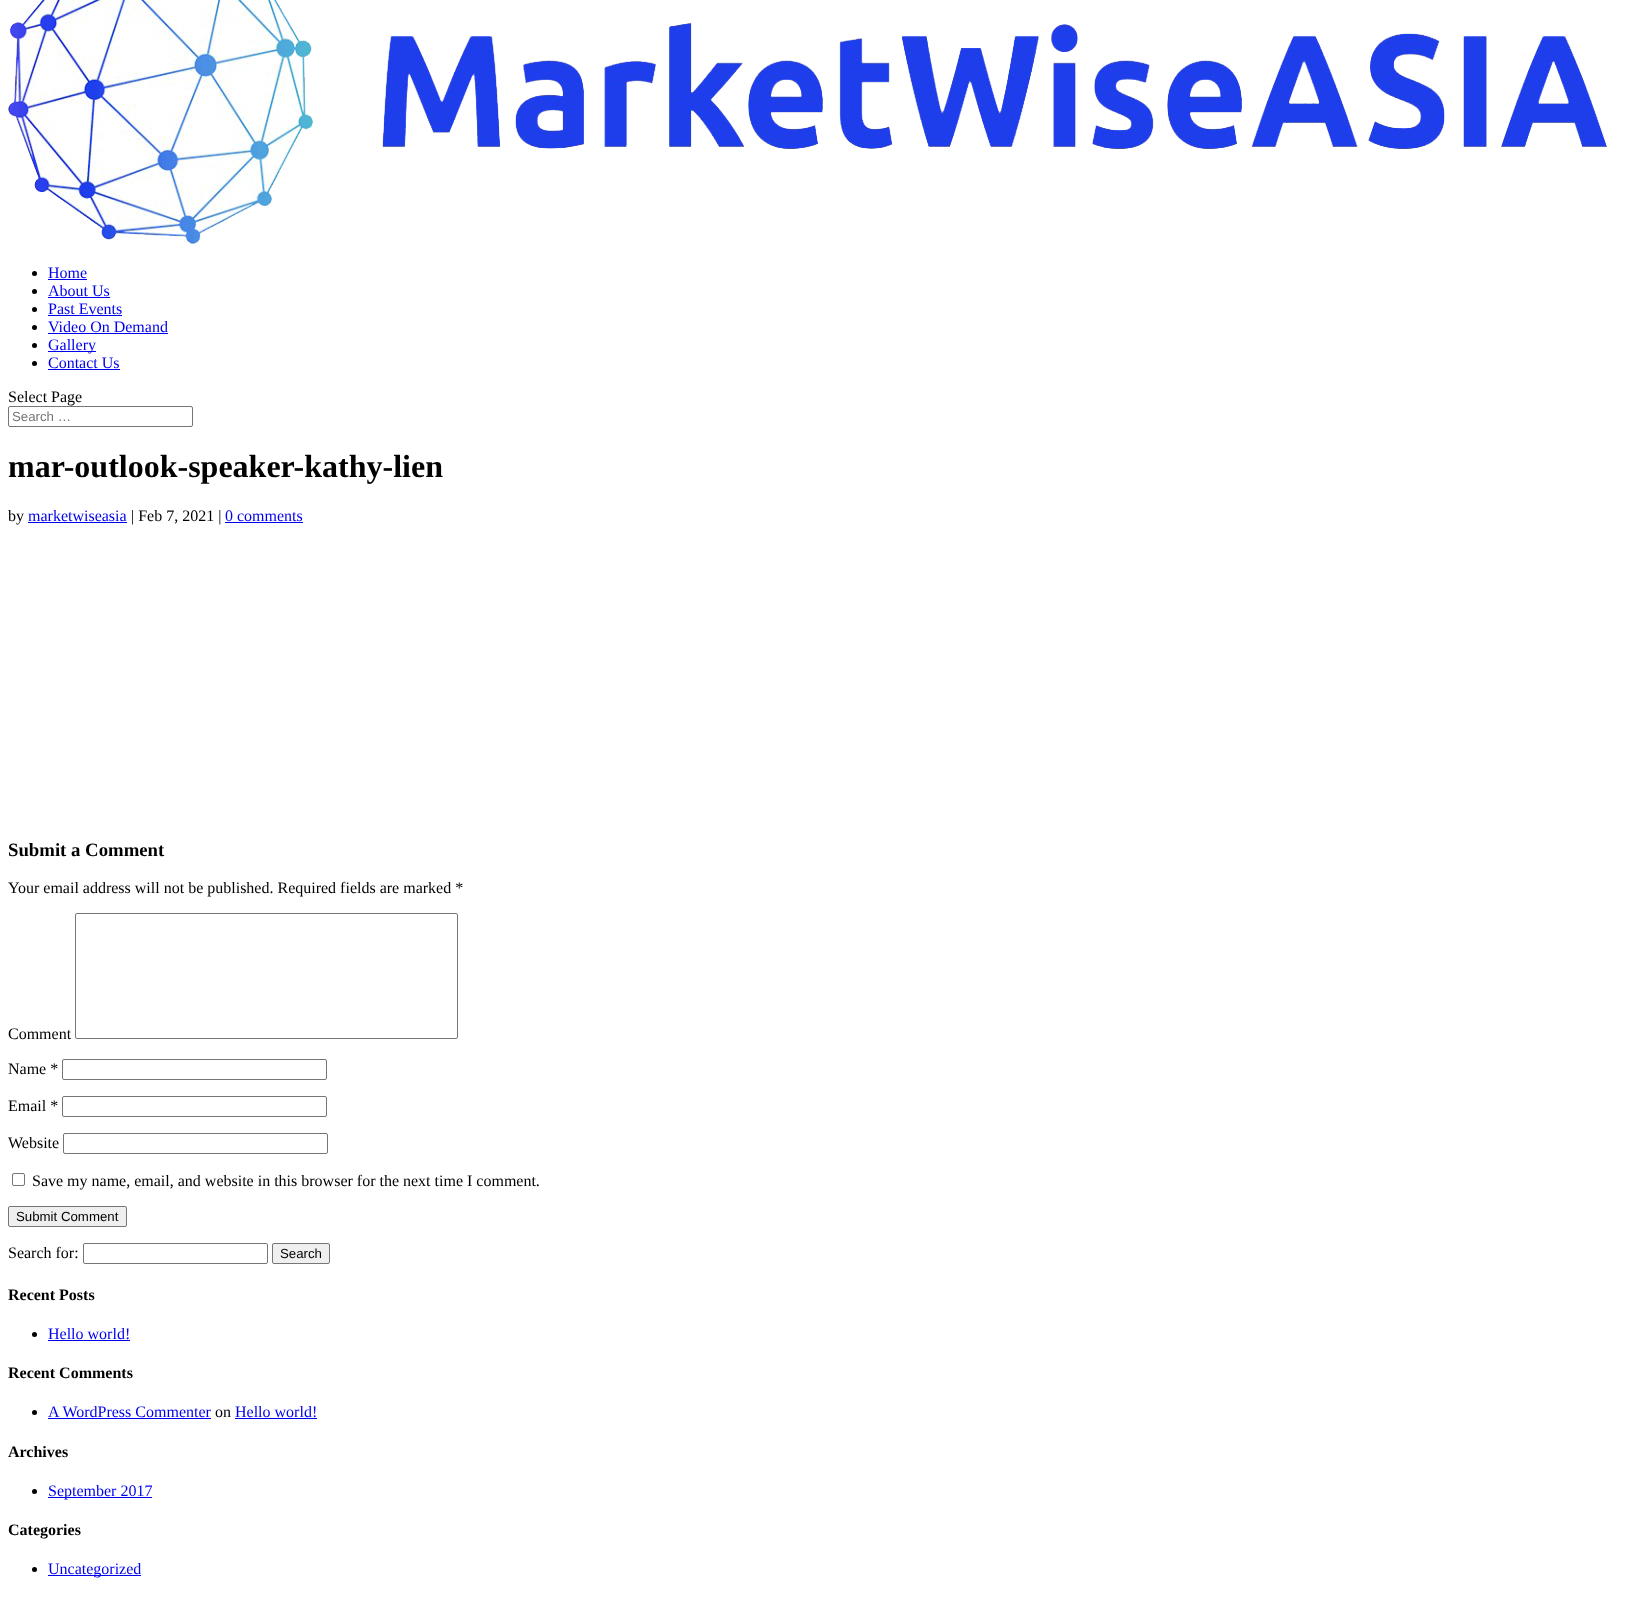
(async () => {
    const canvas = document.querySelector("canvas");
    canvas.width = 1629;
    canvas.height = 1599;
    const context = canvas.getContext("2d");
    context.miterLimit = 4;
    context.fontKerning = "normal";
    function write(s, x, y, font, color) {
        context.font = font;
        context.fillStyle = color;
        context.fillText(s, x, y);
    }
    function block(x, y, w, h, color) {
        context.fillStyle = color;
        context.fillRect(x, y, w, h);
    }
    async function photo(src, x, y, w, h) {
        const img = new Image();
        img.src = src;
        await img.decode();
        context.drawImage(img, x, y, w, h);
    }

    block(0, 0, 1629, 1599, "rgb(255, 255, 255)");
    await photo("media/1.png", 8, 0, 1599, 244);
    context.fillStyle = "rgb(0, 0, 0)";
    context.beginPath();
    context.arc(34.5, 273.5, 2.5, 0, Math.PI * 2);
    context.fill();
    write("Home", 48, 278, "16px Liberation Serif", "rgb(0, 0, 238)");
    block(48, 279, 39, 1, "rgb(0, 0, 238)");
    context.fillStyle = "rgb(0, 0, 0)";
    context.beginPath();
    context.arc(34.5, 291.5, 2.5, 0, Math.PI * 2);
    context.fill();
    write("About Us", 48, 296, "16px Liberation Serif", "rgb(0, 0, 238)");
    block(48, 297, 62, 1, "rgb(0, 0, 238)");
    context.fillStyle = "rgb(0, 0, 0)";
    context.beginPath();
    context.arc(34.5, 309.5, 2.5, 0, Math.PI * 2);
    context.fill();
    write("Past Events", 48, 314, "16px Liberation Serif", "rgb(0, 0, 238)");
    block(48, 315, 74, 1, "rgb(0, 0, 238)");
    context.fillStyle = "rgb(0, 0, 0)";
    context.beginPath();
    context.arc(34.5, 327.5, 2.5, 0, Math.PI * 2);
    context.fill();
    write("Video On Demand", 48, 332, "16px Liberation Serif", "rgb(0, 0, 238)");
    block(48, 333, 120, 1, "rgb(0, 0, 238)");
    context.fillStyle = "rgb(0, 0, 0)";
    context.beginPath();
    context.arc(34.5, 345.5, 2.5, 0, Math.PI * 2);
    context.fill();
    block(48, 351, 48, 1, "rgb(0, 0, 238)");
    write("Gallery", 48, 350, "16px Liberation Serif", "rgb(0, 0, 238)");
    context.fillStyle = "rgb(0, 0, 0)";
    context.beginPath();
    context.arc(34.5, 363.5, 2.5, 0, Math.PI * 2);
    context.fill();
    write("Contact Us", 48, 368, "16px Liberation Serif", "rgb(0, 0, 238)");
    block(48, 369, 72, 1, "rgb(0, 0, 238)");
    write("Select Page", 8, 402, "16px Liberation Serif", "rgb(0, 0, 0)");
    context.beginPath();
    context.roundRect(8.5, 406.5, 184, 20, 1.5);
    context.strokeStyle = "rgb(118, 118, 118)";
    context.stroke();
    write("Search …", 12, 421, "13.25px Liberation Sans", "rgb(117, 117, 117)");
    write("mar-outlook-speaker-kathy-lien", 8, 477, "bold 32px Liberation Serif", "rgb(0, 0, 0)");
    write("by", 8, 521, "16px Liberation Serif", "rgb(0, 0, 0)");
    write("marketwiseasia", 28, 521, "16px Liberation Serif", "rgb(0, 0, 238)");
    block(28, 522, 99, 1, "rgb(0, 0, 238)");
    write("| Feb 7, 2021 |", 131, 521, "16px Liberation Serif", "rgb(0, 0, 0)");
    write("0 comments", 225, 521, "16px Liberation Serif", "rgb(0, 0, 238)");
    block(225, 522, 78, 1, "rgb(0, 0, 238)");
    write("Submit a Comment", 8, 856, "bold 18.75px Liberation Serif", "rgb(0, 0, 0)");
    write("Your email address will not be published. Required fields are marked *", 8, 893, "16px Liberation Serif", "rgb(0, 0, 0)");
    write("Comment", 8, 1039, "16px Liberation Serif", "rgb(0, 0, 0)");
    context.beginPath();
    context.roundRect(75.5, 913.5, 382, 125, 1.5);
    context.stroke();
    write("Name *", 8, 1074, "16px Liberation Serif", "rgb(0, 0, 0)");
    context.beginPath();
    context.roundRect(62.5, 1059.5, 264, 20, 1.5);
    context.stroke();
    write("Email *", 8, 1111, "16px Liberation Serif", "rgb(0, 0, 0)");
    context.beginPath();
    context.roundRect(62.5, 1096.5, 264, 20, 1.5);
    context.stroke();
    write("Website", 8, 1148, "16px Liberation Serif", "rgb(0, 0, 0)");
    context.beginPath();
    context.roundRect(63.5, 1133.5, 264, 20, 1.5);
    context.stroke();
    context.beginPath();
    context.roundRect(12.5, 1173.5, 12, 12, 1.5);
    context.stroke();
    write("Save my name, email, and website in this browser for the next time I comment.", 32, 1186, "16px Liberation Serif", "rgb(0, 0, 0)");
    context.fillStyle = "rgb(239, 239, 239)";
    context.beginPath();
    context.roundRect(8.5, 1206.5, 118, 20, 1.5);
    context.fill();
    context.stroke();
    write("Submit Comment", 16, 1221, "13.25px Liberation Sans", "rgb(0, 0, 0)");
    write("Search for:", 8, 1258, "16px Liberation Serif", "rgb(0, 0, 0)");
    context.beginPath();
    context.roundRect(83.5, 1243.5, 184, 20, 1.5);
    context.stroke();
    context.fillStyle = "rgb(239, 239, 239)";
    context.beginPath();
    context.roundRect(272.5, 1243.5, 57, 20, 1.5);
    context.fill();
    context.stroke();
    write("Search", 280, 1258, "13.25px Liberation Sans", "rgb(0, 0, 0)");
    write("Recent Posts", 8, 1300, "bold 16px Liberation Serif", "rgb(0, 0, 0)");
    context.beginPath();
    context.arc(34.5, 1334.5, 2.5, 0, Math.PI * 2);
    context.fill();
    write("Hello world!", 48, 1339, "16px Liberation Serif", "rgb(0, 0, 238)");
    block(48, 1340, 82, 1, "rgb(0, 0, 238)");
    write("Recent Comments", 8, 1378, "bold 16px Liberation Serif", "rgb(0, 0, 0)");
    context.beginPath();
    context.arc(34.5, 1412.5, 2.5, 0, Math.PI * 2);
    context.fill();
    write("A WordPress Commenter", 48, 1417, "16px Liberation Serif", "rgb(0, 0, 238)");
    block(48, 1418, 163, 1, "rgb(0, 0, 238)");
    write("on", 215, 1417, "16px Liberation Serif", "rgb(0, 0, 0)");
    write("Hello world!", 235, 1417, "16px Liberation Serif", "rgb(0, 0, 238)");
    block(235, 1418, 82, 1, "rgb(0, 0, 238)");
    write("Archives", 8, 1457, "bold 16px Liberation Serif", "rgb(0, 0, 0)");
    context.beginPath();
    context.arc(34.5, 1491.5, 2.5, 0, Math.PI * 2);
    context.fill();
    block(48, 1497, 104, 1, "rgb(0, 0, 238)");
    write("September 2017", 48, 1496, "16px Liberation Serif", "rgb(0, 0, 238)");
    write("Categories", 8, 1535, "bold 16px Liberation Serif", "rgb(0, 0, 0)");
    context.beginPath();
    context.arc(34.5, 1569.5, 2.5, 0, Math.PI * 2);
    context.fill();
    block(48, 1575, 93, 1, "rgb(0, 0, 238)");
    write("Uncategorized", 48, 1574, "16px Liberation Serif", "rgb(0, 0, 238)");
})();
